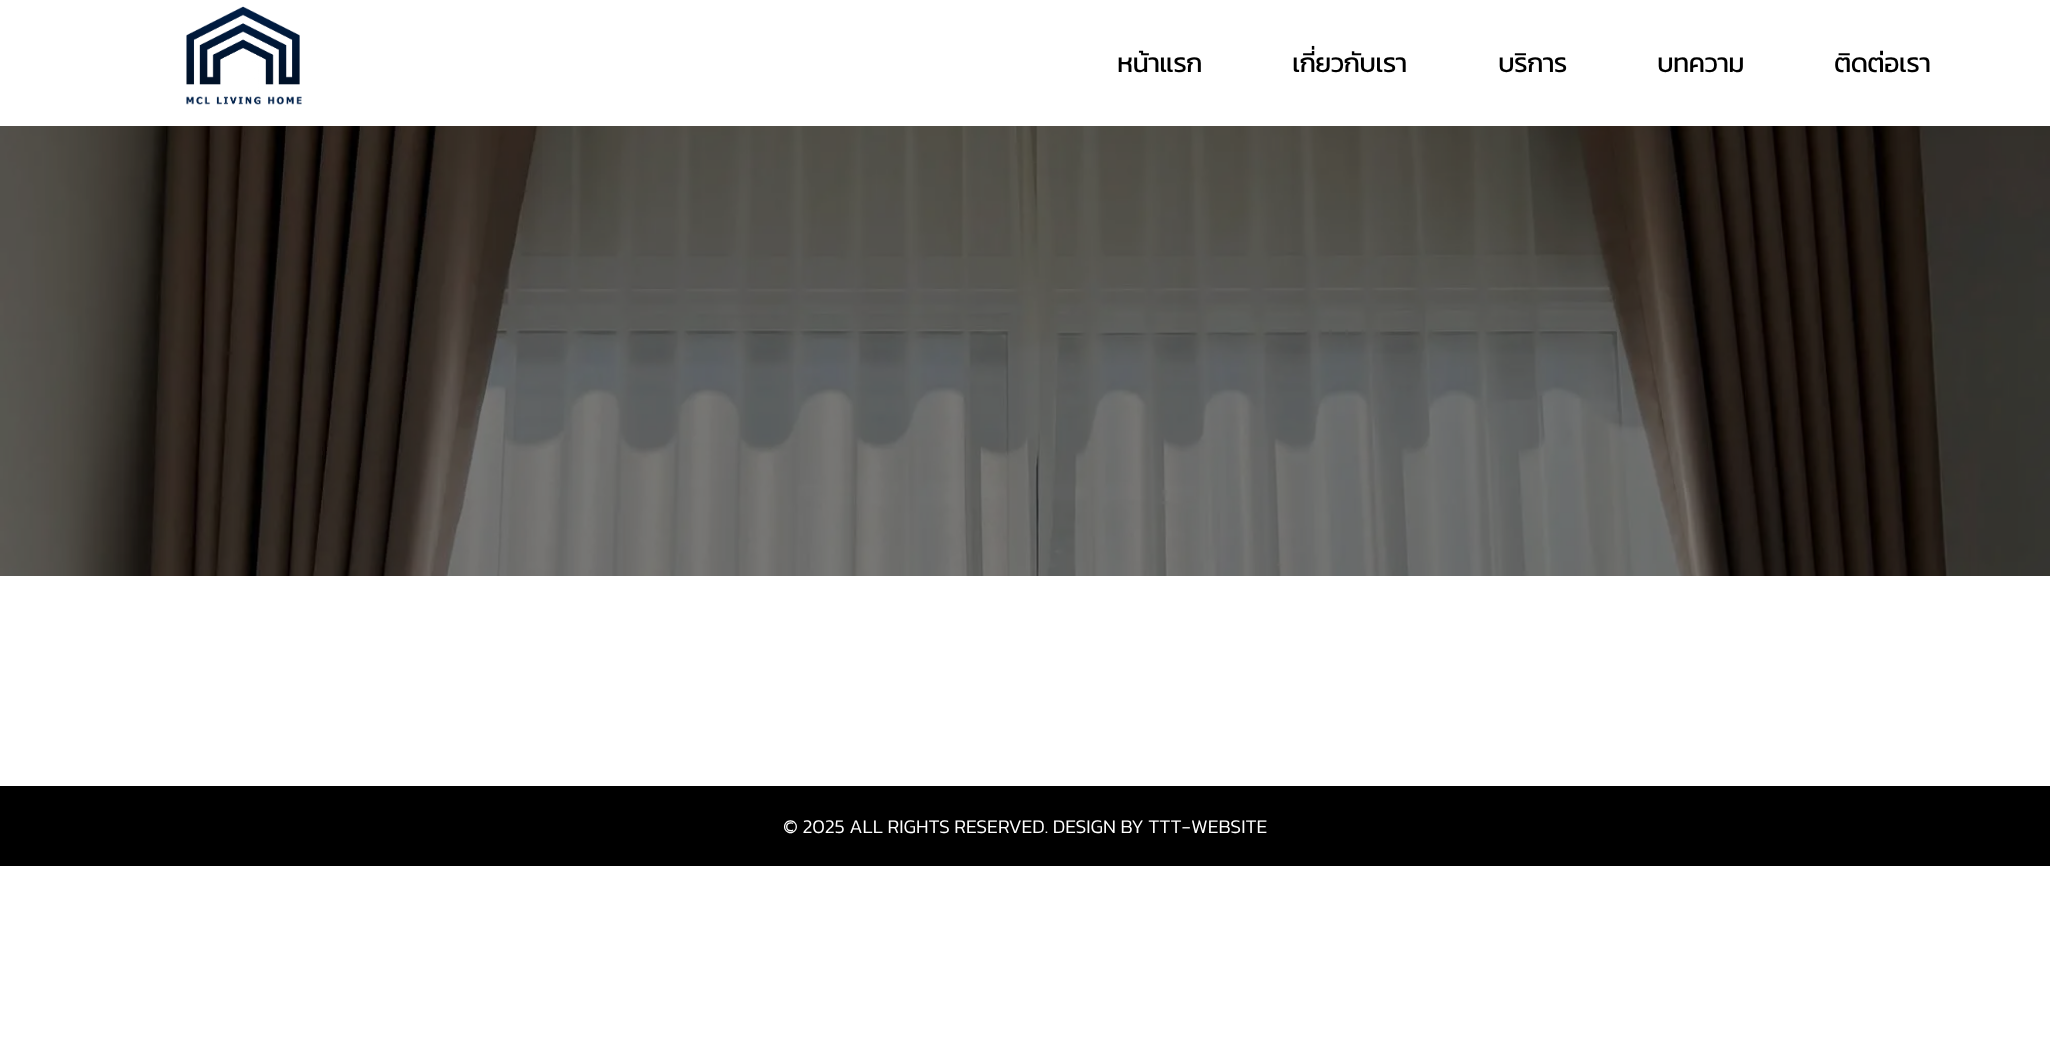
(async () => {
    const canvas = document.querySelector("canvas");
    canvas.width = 2050;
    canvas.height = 1057;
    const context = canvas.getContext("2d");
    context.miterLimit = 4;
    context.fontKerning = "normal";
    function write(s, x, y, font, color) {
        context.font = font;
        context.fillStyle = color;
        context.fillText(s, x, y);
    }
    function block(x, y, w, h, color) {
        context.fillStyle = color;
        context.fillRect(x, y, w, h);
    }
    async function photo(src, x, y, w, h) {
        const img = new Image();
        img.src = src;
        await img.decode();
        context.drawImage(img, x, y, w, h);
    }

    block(0, 0, 2050, 1057, "rgb(255, 255, 255)");
    await photo("media/1.png", 186, 6, 116, 99);
    context.letterSpacing = "-0.75px";
    write("หน้าแรก", 1117, 72, "27px Kanit", "rgb(0, 0, 0)");
    write("เกี่ยวกับเรา", 1292, 72, "27px Kanit", "rgb(0, 0, 0)");
    write("บริการ", 1498, 72, "27px Kanit", "rgb(0, 0, 0)");
    write("บทความ", 1657, 72, "27px Kanit", "rgb(0, 0, 0)");
    write("ติดต่อเรา", 1834, 72, "27px Kanit", "rgb(0, 0, 0)");
    await photo("media/2.png", 0, 126, 2050, 450);
    block(0, 786, 2050, 80, "rgb(0, 0, 0)");
    context.letterSpacing = "0px";
    write("© 2025 ALL RIGHTS RESERVED. DESIGN BY TTT-WEBSITE", 783, 833, "300 19.5px Kanit", "rgb(255, 255, 255)");
})();
